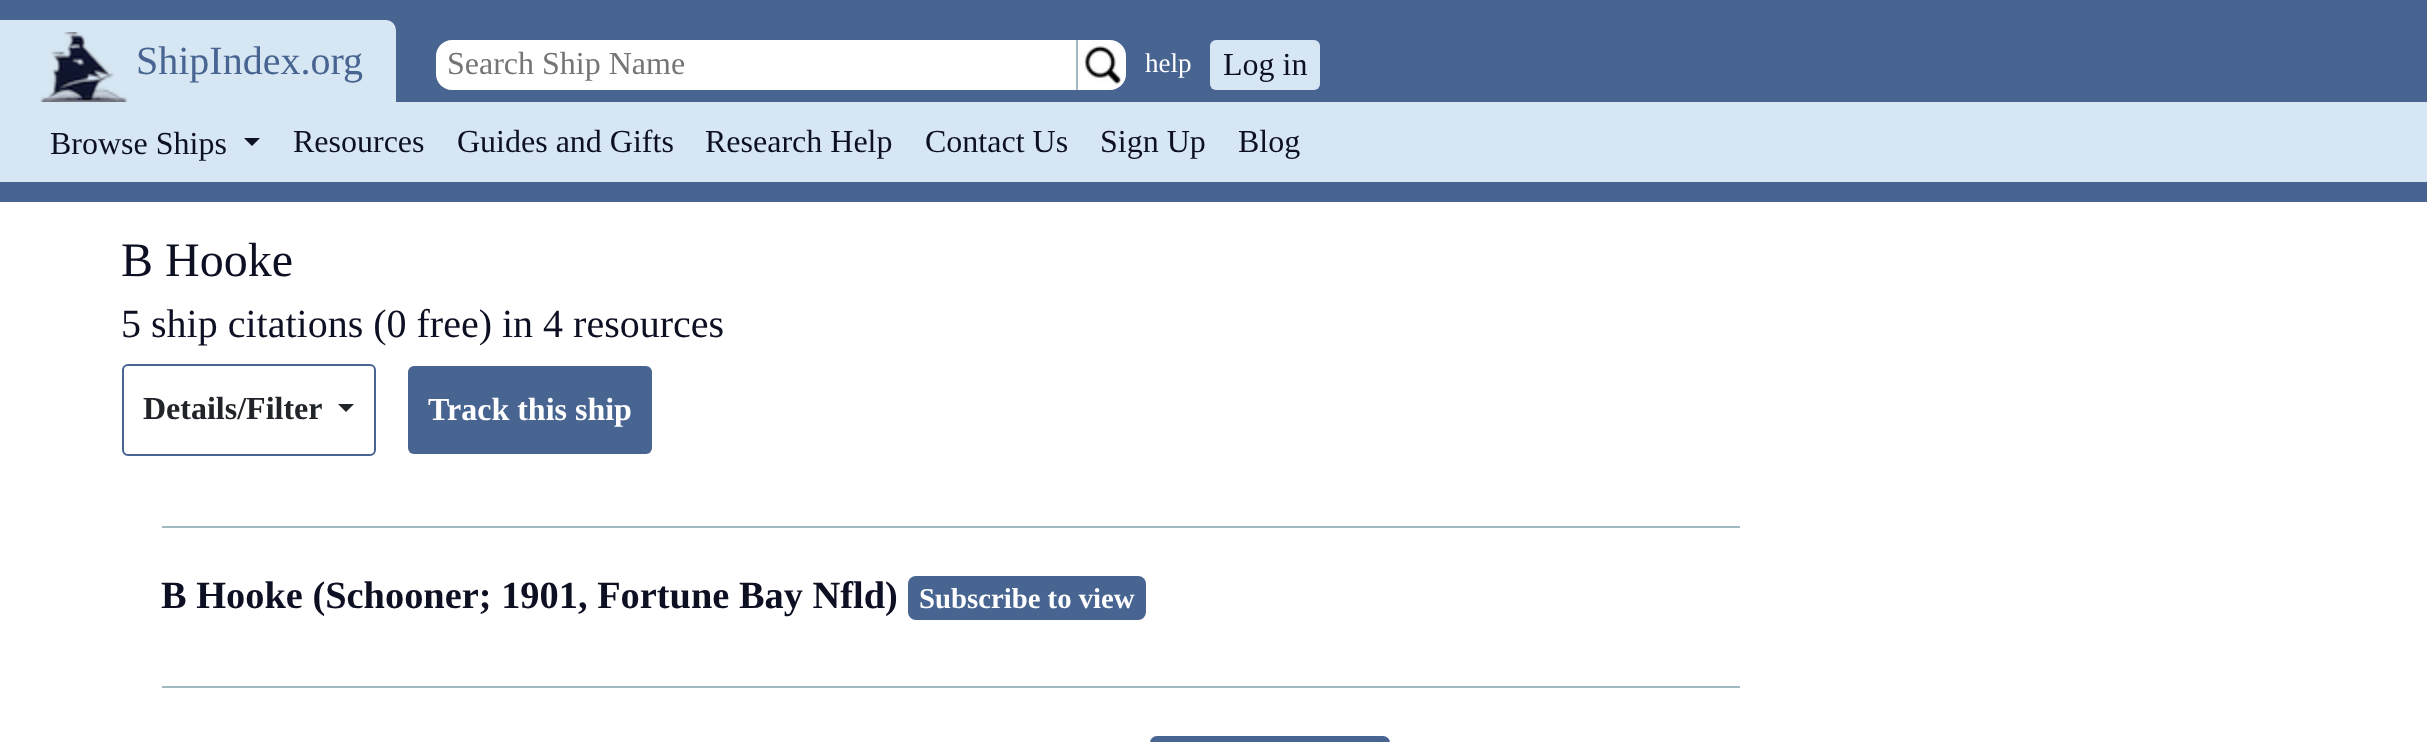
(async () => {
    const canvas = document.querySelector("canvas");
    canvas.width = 2427;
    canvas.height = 742;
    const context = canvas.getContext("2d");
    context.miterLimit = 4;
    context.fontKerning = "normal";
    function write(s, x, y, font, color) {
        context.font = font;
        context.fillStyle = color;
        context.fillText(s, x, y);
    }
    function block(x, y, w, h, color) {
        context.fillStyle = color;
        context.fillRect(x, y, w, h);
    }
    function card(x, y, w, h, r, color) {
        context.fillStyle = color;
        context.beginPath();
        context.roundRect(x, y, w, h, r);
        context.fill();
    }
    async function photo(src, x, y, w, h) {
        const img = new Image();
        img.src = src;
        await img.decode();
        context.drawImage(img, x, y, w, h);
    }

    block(0, 0, 2427, 742, "rgb(255, 255, 255)");
    block(0, 0, 2427, 202, "rgb(72, 100, 145)");
    context.fillStyle = "rgb(214, 230, 243)";
    context.beginPath();
    context.roundRect(0, 20, 396, 82, [0, 10, 0, 0]);
    context.fill();
    await photo("media/1.png", 40, 32, 88, 70);
    write("ShipIndex.org", 136, 74, "40px Liberation Serif", "rgb(72, 100, 145)");
    context.fillStyle = "rgb(255, 255, 255)";
    context.beginPath();
    context.roundRect(436, 40, 640, 50, [16, 0, 0, 16]);
    context.fill();
    write("Search Ship Name", 447, 74, "32px Liberation Serif", "rgb(117, 117, 117)");
    block(1076, 40, 2, 50, "rgb(161, 185, 192)");
    await photo("media/2.png", 1078, 40, 48, 50);
    write("help", 1145, 72, "27px Liberation Serif", "rgb(255, 255, 255)");
    card(1210, 40, 110, 50, 6, "rgb(214, 230, 243)");
    write("Log in", 1223, 75, "32px Liberation Serif", "rgb(13, 15, 35)");
    block(0, 102, 2427, 80, "rgb(214, 230, 243)");
    write("Browse Ships", 50, 154, "32px Liberation Serif", "rgb(13, 15, 35)");
    context.beginPath();
    context.moveTo(244, 138);
    context.lineTo(260, 138);
    context.lineTo(252, 146);
    context.closePath();
    context.fill();
    write("Resources", 293, 152, "32px Liberation Serif", "rgb(13, 15, 35)");
    write("Guides and Gifts", 457, 152, "32px Liberation Serif", "rgb(13, 15, 35)");
    write("Research Help", 705, 152, "32px Liberation Serif", "rgb(13, 15, 35)");
    write("Contact Us", 925, 152, "32px Liberation Serif", "rgb(13, 15, 35)");
    write("Sign Up", 1100, 152, "32px Liberation Serif", "rgb(13, 15, 35)");
    write("Blog", 1238, 152, "32px Liberation Serif", "rgb(13, 15, 35)");
    write("B Hooke", 121, 276, "48px Liberation Serif", "rgb(13, 15, 35)");
    write("5 ship citations (0 free) in 4 resources", 121, 337, "40px Liberation Serif", "rgb(13, 15, 35)");
    context.beginPath();
    context.roundRect(123, 365, 252, 90, 5);
    context.strokeStyle = "rgb(72, 100, 145)";
    context.lineWidth = 2;
    context.stroke();
    write("Details/Filter", 143, 419, "bold 32px Liberation Serif", "rgb(33, 37, 41)");
    context.beginPath();
    context.moveTo(338, 404);
    context.lineTo(354, 404);
    context.lineTo(346, 412);
    context.closePath();
    context.fill();
    card(408, 366, 244, 88, 6, "rgb(72, 100, 145)");
    write("Track this ship", 428, 420, "bold 32px Liberation Serif", "rgb(255, 255, 255)");
    block(162, 526, 1578, 2, "rgb(161, 185, 192)");
    write("B Hooke (Schooner; 1901, Fortune Bay Nfld)", 161, 608, "bold 38.4px Liberation Serif", "rgb(13, 15, 35)");
    card(908, 576, 238, 44, 8, "rgb(72, 100, 145)");
    write("Subscribe to view", 919, 608, "bold 28.75px Liberation Serif", "rgb(255, 255, 255)");
    block(162, 686, 1578, 2, "rgb(161, 185, 192)");
    card(1150, 736, 240, 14, 8, "rgb(72, 100, 145)");
})();
